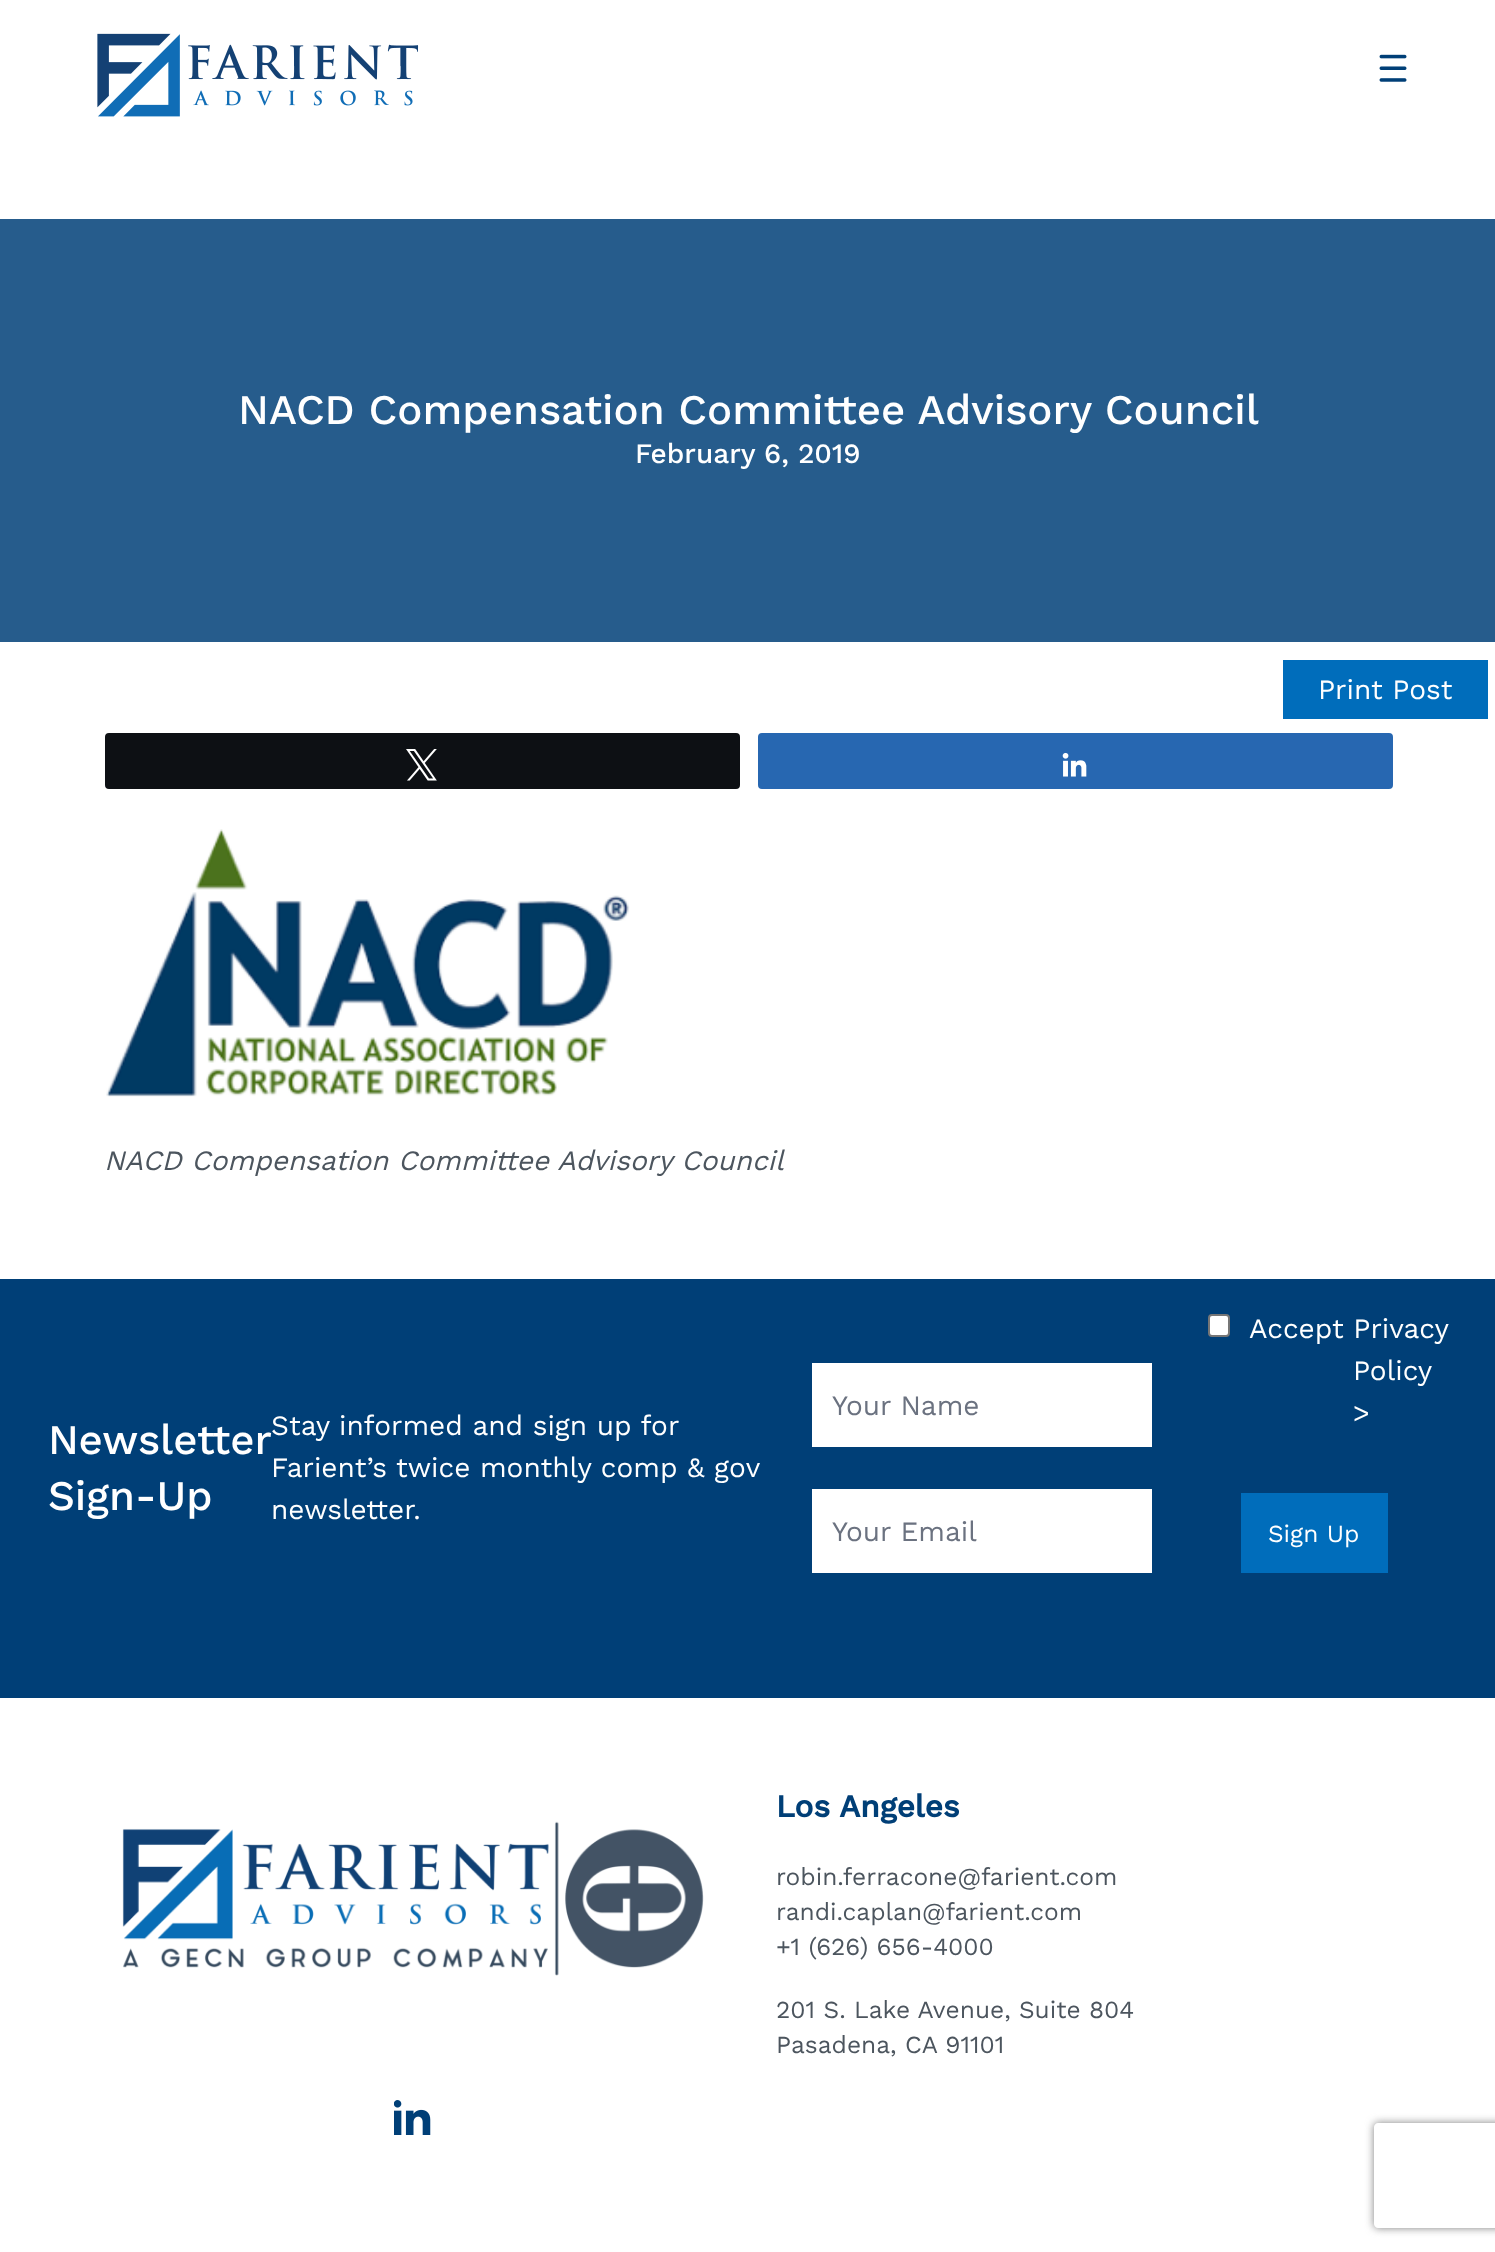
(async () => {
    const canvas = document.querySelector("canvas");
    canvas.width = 1495;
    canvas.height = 2252;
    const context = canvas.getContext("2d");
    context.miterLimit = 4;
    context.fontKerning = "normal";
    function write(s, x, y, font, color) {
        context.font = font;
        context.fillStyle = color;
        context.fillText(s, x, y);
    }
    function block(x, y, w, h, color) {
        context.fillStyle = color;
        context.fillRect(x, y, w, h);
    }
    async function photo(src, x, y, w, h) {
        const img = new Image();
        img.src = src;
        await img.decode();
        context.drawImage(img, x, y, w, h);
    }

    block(0, 0, 1495, 2252, "rgb(255, 255, 255)");
    await photo("media/1.png", 97, 33, 322, 84);
    await photo("media/2.png", 1379, 54, 28, 28);
    block(0, 219, 1495, 423, "rgb(38, 92, 140)");
    write("NACD Compensation Committee Advisory Council", 238, 424, "500 42px Work Sans", "rgb(255, 255, 255)");
    write("February 6, 2019", 635, 463, "500 28px Work Sans", "rgb(255, 255, 255)");
    block(1283, 660, 205, 59, "rgb(0, 109, 187)");
    write("Print Post", 1318, 699, "28px Work Sans", "rgb(255, 255, 255)");
    context.fillStyle = "rgb(13, 16, 20)";
    context.beginPath();
    context.roundRect(106, 734, 633, 54, 3);
    context.fill();
    context.strokeStyle = "rgb(13, 16, 20)";
    context.lineWidth = 2;
    context.stroke();
    await photo("media/3.png", 406, 749, 31, 32);
    context.fillStyle = "rgb(39, 103, 177)";
    context.beginPath();
    context.roundRect(759, 734, 633, 54, 3);
    context.fill();
    context.strokeStyle = "rgb(39, 103, 177)";
    context.stroke();
    await photo("media/4.png", 1062, 752, 25, 25);
    await photo("media/5.png", 106, 829, 524, 268);
    write("NACD Compensation Committee Advisory Council", 104, 1170, "italic 28px Work Sans", "rgb(76, 85, 94)");
    block(0, 1279, 1495, 419, "rgb(0, 63, 119)");
    write("Newsletter", 48, 1454, "500 42px Work Sans", "rgb(255, 255, 255)");
    write("Sign-Up", 48, 1510, "500 42px Work Sans", "rgb(255, 255, 255)");
    write("Stay informed and sign up for", 271, 1435, "28px Work Sans", "rgb(255, 255, 255)");
    write("Farient’s twice monthly comp & gov", 271, 1477, "28px Work Sans", "rgb(255, 255, 255)");
    write("newsletter.", 271, 1519, "28px Work Sans", "rgb(255, 255, 255)");
    block(812, 1363, 340, 84, "rgb(255, 255, 255)");
    write("Your Name", 832, 1415, "28px Work Sans", "rgb(107, 114, 128)");
    block(812, 1489, 340, 84, "rgb(255, 255, 255)");
    write("Your Email", 832, 1541, "28px Work Sans", "rgb(107, 114, 128)");
    context.fillStyle = "rgb(255, 255, 255)";
    context.beginPath();
    context.roundRect(1209, 1315, 20, 21, 3);
    context.fill();
    context.strokeStyle = "rgb(118, 118, 118)";
    context.stroke();
    write("Accept Privacy", 1249, 1338, "28px Work Sans", "rgb(255, 255, 255)");
    write("Policy", 1353, 1380, "28px Work Sans", "rgb(255, 255, 255)");
    write(">", 1353, 1422, "28px Work Sans", "rgb(255, 255, 255)");
    block(1241, 1493, 147, 80, "rgb(0, 109, 187)");
    write("Sign Up", 1268, 1542, "24.5px Work Sans", "rgb(255, 255, 255)");
    await photo("media/6.png", 122, 1821, 582, 155);
    await photo("media/7.png", 394, 2100, 37, 35);
    write("Los Angeles", 776, 1817, "bold 31.5px Work Sans", "rgb(0, 63, 119)");
    write("robin.ferracone@farient.com", 776, 1885, "24.5px Work Sans", "rgb(76, 85, 94)");
    write("randi.caplan@farient.com", 776, 1920, "24.5px Work Sans", "rgb(76, 85, 94)");
    write("+1 (626) 656-4000", 776, 1955, "24.5px Work Sans", "rgb(76, 85, 94)");
    write("201 S. Lake Avenue, Suite 804", 776, 2018, "24.5px Work Sans", "rgb(76, 85, 94)");
    write("Pasadena, CA 91101", 776, 2053, "24.5px Work Sans", "rgb(76, 85, 94)");
    context.save();
    context.beginPath();
    context.moveTo(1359, 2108);
    context.lineTo(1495, 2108);
    context.lineTo(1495, 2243);
    context.lineTo(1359, 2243);
    context.closePath();
    context.moveTo(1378, 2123);
    context.lineTo(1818, 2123);
    context.bezierCurveTo(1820, 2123, 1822, 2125, 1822, 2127);
    context.lineTo(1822, 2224);
    context.bezierCurveTo(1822, 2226, 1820, 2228, 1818, 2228);
    context.lineTo(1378, 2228);
    context.bezierCurveTo(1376, 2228, 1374, 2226, 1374, 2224);
    context.lineTo(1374, 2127);
    context.bezierCurveTo(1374, 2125, 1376, 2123, 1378, 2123);
    context.closePath();
    context.clip("evenodd");
    context.fillStyle = "rgb(128, 128, 128)";
    context.filter = "blur(4.5px)";
    context.beginPath();
    context.roundRect(1374, 2123, 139, 105, 4);
    context.fill();
    context.filter = "none";
    context.restore();
})();
